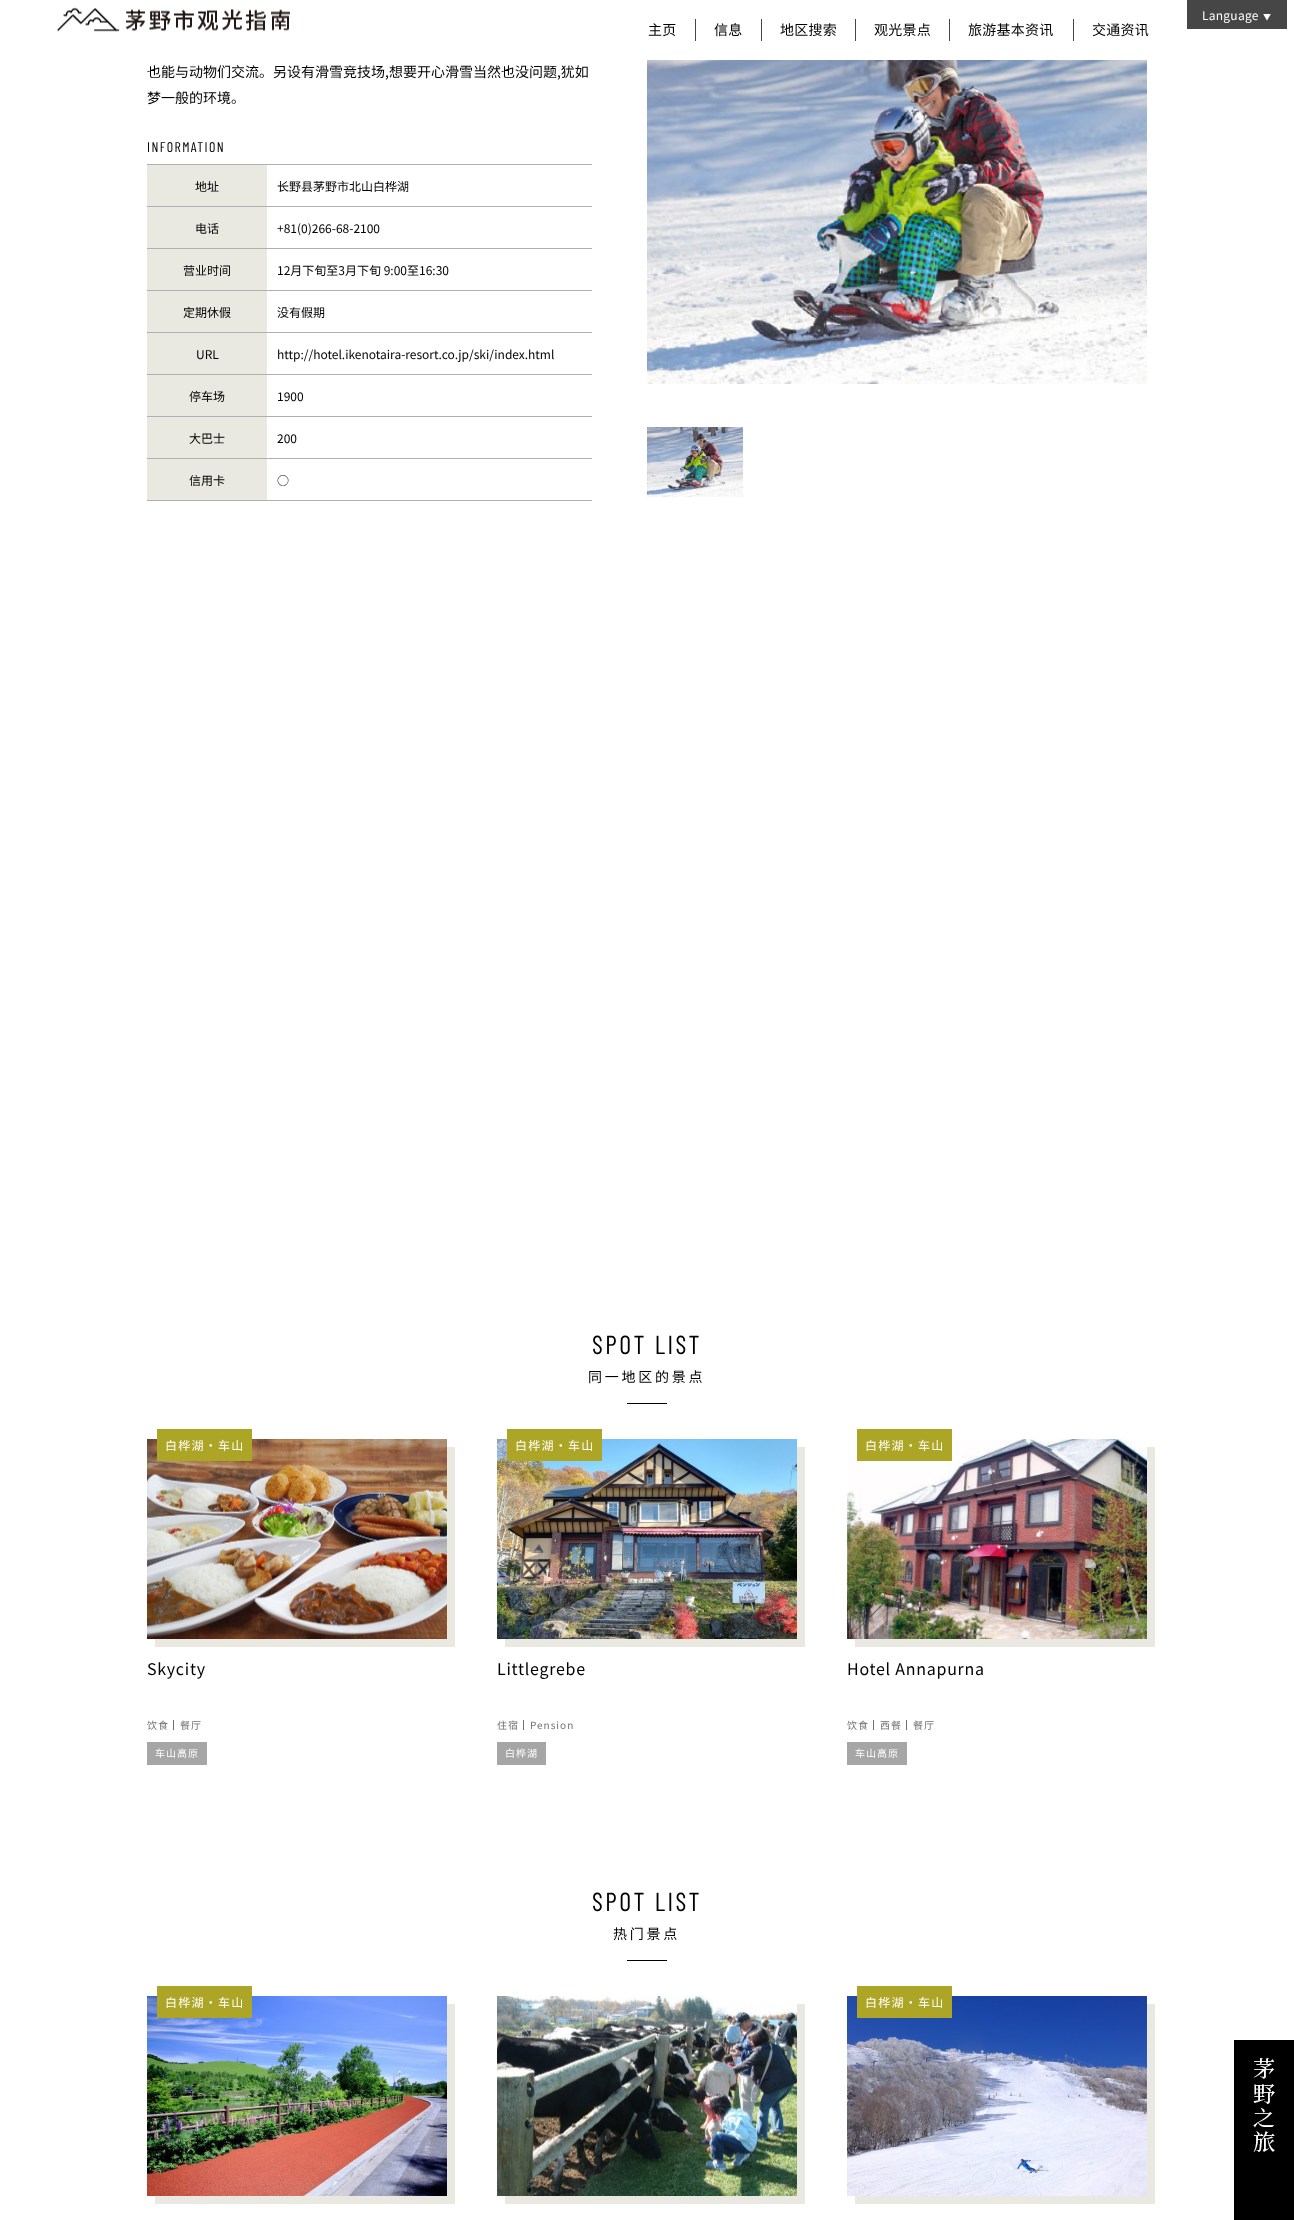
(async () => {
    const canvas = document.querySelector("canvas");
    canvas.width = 1294;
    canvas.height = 2220;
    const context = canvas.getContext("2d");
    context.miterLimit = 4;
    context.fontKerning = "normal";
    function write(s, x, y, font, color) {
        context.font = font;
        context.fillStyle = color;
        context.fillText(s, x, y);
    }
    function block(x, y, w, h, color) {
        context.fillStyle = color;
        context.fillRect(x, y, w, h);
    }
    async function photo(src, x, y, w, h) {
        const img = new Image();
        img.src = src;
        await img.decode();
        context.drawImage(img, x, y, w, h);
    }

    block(0, 0, 1294, 2220, "rgb(255, 255, 255)");
    await photo("media/1.png", 57, 7, 233, 25);
    block(1187, 0, 100, 29, "rgb(70, 70, 70)");
    context.letterSpacing = "0.25px";
    write("Language", 1202, 20, "100 12px Noto Sans SC", "rgb(255, 255, 255)");
    write("▼", 1263, 20, "100 8px Noto Sans SC", "rgb(255, 255, 255)");
    write("主页", 648, 35, "100 14px Noto Sans SC", "rgb(0, 0, 0)");
    block(695, 19, 1, 22, "rgb(70, 70, 70)");
    write("信息", 714, 35, "100 14px Noto Sans SC", "rgb(0, 0, 0)");
    block(761, 19, 1, 22, "rgb(70, 70, 70)");
    write("地区搜索", 780, 35, "100 14px Noto Sans SC", "rgb(0, 0, 0)");
    block(855, 19, 1, 22, "rgb(70, 70, 70)");
    write("观光景点", 874, 35, "100 14px Noto Sans SC", "rgb(0, 0, 0)");
    block(949, 19, 1, 22, "rgb(70, 70, 70)");
    write("旅游基本资讯", 968, 35, "100 14px Noto Sans SC", "rgb(0, 0, 0)");
    block(1073, 19, 1, 22, "rgb(70, 70, 70)");
    write("交通资讯", 1092, 35, "100 14px Noto Sans SC", "rgb(0, 0, 0)");
    context.letterSpacing = "0px";
    write("也能与动物们交流。另设有滑雪竞技场,想要开心滑雪当然也没问题,犹如", 147, 77, "100 14px Noto Sans SC", "rgb(0, 0, 0)");
    write("梦一般的环境。", 147, 103, "100 14px Noto Sans SC", "rgb(0, 0, 0)");
    context.letterSpacing = "1.4px";
    write("INFORMATION", 147, 152, "14px Barlow Condensed", "rgb(0, 0, 0)");
    block(147, 164, 445, 1, "rgb(176, 176, 176)");
    block(147, 206, 445, 1, "rgb(176, 176, 176)");
    block(147, 165, 120, 41, "rgb(233, 233, 225)");
    context.letterSpacing = "0px";
    write("地址", 195, 191, "100 12px Noto Sans SC", "rgb(0, 0, 0)");
    write("长野县茅野市北山白桦湖", 277, 191, "100 12px Noto Sans SC", "rgb(0, 0, 0)");
    block(147, 248, 445, 1, "rgb(176, 176, 176)");
    block(147, 207, 120, 41, "rgb(233, 233, 225)");
    write("电话", 195, 233, "100 12px Noto Sans SC", "rgb(0, 0, 0)");
    write("+81(0)266-68-2100", 277, 233, "100 12px Noto Sans SC", "rgb(0, 0, 0)");
    block(147, 290, 445, 1, "rgb(176, 176, 176)");
    block(147, 249, 120, 41, "rgb(233, 233, 225)");
    write("营业时间", 183, 275, "100 12px Noto Sans SC", "rgb(0, 0, 0)");
    write("12月下旬至3月下旬 9:00至16:30", 277, 275, "100 12px Noto Sans SC", "rgb(0, 0, 0)");
    block(147, 332, 445, 1, "rgb(176, 176, 176)");
    block(147, 291, 120, 41, "rgb(233, 233, 225)");
    write("定期休假", 183, 317, "100 12px Noto Sans SC", "rgb(0, 0, 0)");
    write("没有假期", 277, 317, "100 12px Noto Sans SC", "rgb(0, 0, 0)");
    block(147, 374, 445, 1, "rgb(176, 176, 176)");
    block(147, 333, 120, 41, "rgb(233, 233, 225)");
    write("URL", 196, 359, "100 12px Noto Sans SC", "rgb(0, 0, 0)");
    write("http://hotel.ikenotaira-resort.co.jp/ski/index.html", 277, 359, "100 12px Noto Sans SC", "rgb(0, 0, 0)");
    block(147, 416, 445, 1, "rgb(176, 176, 176)");
    block(147, 375, 120, 41, "rgb(233, 233, 225)");
    write("停车场", 189, 401, "100 12px Noto Sans SC", "rgb(0, 0, 0)");
    write("1900", 277, 401, "100 12px Noto Sans SC", "rgb(0, 0, 0)");
    block(147, 458, 445, 1, "rgb(176, 176, 176)");
    block(147, 417, 120, 41, "rgb(233, 233, 225)");
    write("大巴士", 189, 443, "100 12px Noto Sans SC", "rgb(0, 0, 0)");
    write("200", 277, 443, "100 12px Noto Sans SC", "rgb(0, 0, 0)");
    block(147, 500, 445, 1, "rgb(176, 176, 176)");
    block(147, 459, 120, 41, "rgb(233, 233, 225)");
    write("信用卡", 189, 485, "100 12px Noto Sans SC", "rgb(0, 0, 0)");
    write("○", 277, 485, "100 12px Noto Sans SC", "rgb(0, 0, 0)");
    await photo("media/2.png", 647, 60, 500, 324);
    await photo("media/3.png", 647, 427, 96, 70);
    context.letterSpacing = "2.5px";
    write("SPOT LIST", 592, 1354, "26px Barlow Condensed", "rgb(0, 0, 0)");
    context.letterSpacing = "2.75px";
    write("同一地区的景点", 588, 1382, "100 14px Noto Sans SC", "rgb(0, 0, 0)");
    block(627, 1403, 40, 1, "rgb(0, 0, 0)");
    block(155, 1447, 300, 200, "rgb(233, 233, 225)");
    await photo("media/4.png", 147, 1439, 300, 200);
    block(157, 1429, 95, 32, "rgb(173, 165, 38)");
    context.letterSpacing = "1.25px";
    write("白桦湖・车山", 165, 1450, "100 12px Noto Sans SC", "rgb(255, 255, 255)");
    context.letterSpacing = "0.75px";
    write("Skycity", 147, 1675, "100 16px Noto Sans SC", "rgb(0, 0, 0)");
    context.letterSpacing = "1px";
    write("饮食", 147, 1729, "100 10px Noto Sans SC", "rgb(112, 112, 112)");
    block(173, 1720, 1, 10, "rgb(112, 112, 112)");
    write("餐厅", 180, 1729, "100 10px Noto Sans SC", "rgb(112, 112, 112)");
    block(147, 1742, 60, 23, "rgb(166, 166, 166)");
    write("车山高原", 155, 1757, "100 10px Noto Sans SC", "rgb(255, 255, 255)");
    block(505, 1447, 300, 200, "rgb(233, 233, 225)");
    await photo("media/5.png", 497, 1439, 300, 200);
    block(507, 1429, 95, 32, "rgb(173, 165, 38)");
    context.letterSpacing = "1.25px";
    write("白桦湖・车山", 515, 1450, "100 12px Noto Sans SC", "rgb(255, 255, 255)");
    context.letterSpacing = "0.75px";
    write("Littlegrebe", 497, 1675, "100 16px Noto Sans SC", "rgb(0, 0, 0)");
    context.letterSpacing = "1px";
    write("住宿", 497, 1729, "100 10px Noto Sans SC", "rgb(112, 112, 112)");
    block(523, 1720, 1, 10, "rgb(112, 112, 112)");
    write("Pension", 530, 1729, "100 10px Noto Sans SC", "rgb(112, 112, 112)");
    block(497, 1742, 49, 23, "rgb(166, 166, 166)");
    write("白桦湖", 505, 1757, "100 10px Noto Sans SC", "rgb(255, 255, 255)");
    block(855, 1447, 300, 200, "rgb(233, 233, 225)");
    await photo("media/6.png", 847, 1439, 300, 200);
    block(857, 1429, 95, 32, "rgb(173, 165, 38)");
    context.letterSpacing = "1.25px";
    write("白桦湖・车山", 865, 1450, "100 12px Noto Sans SC", "rgb(255, 255, 255)");
    context.letterSpacing = "0.75px";
    write("Hotel Annapurna", 847, 1675, "100 16px Noto Sans SC", "rgb(0, 0, 0)");
    context.letterSpacing = "1px";
    write("饮食", 847, 1729, "100 10px Noto Sans SC", "rgb(112, 112, 112)");
    block(873, 1720, 1, 10, "rgb(112, 112, 112)");
    write("西餐", 880, 1729, "100 10px Noto Sans SC", "rgb(112, 112, 112)");
    block(906, 1720, 1, 10, "rgb(112, 112, 112)");
    write("餐厅", 913, 1729, "100 10px Noto Sans SC", "rgb(112, 112, 112)");
    block(847, 1742, 60, 23, "rgb(166, 166, 166)");
    write("车山高原", 855, 1757, "100 10px Noto Sans SC", "rgb(255, 255, 255)");
    context.letterSpacing = "2.5px";
    write("SPOT LIST", 592, 1911, "26px Barlow Condensed", "rgb(0, 0, 0)");
    context.letterSpacing = "2.75px";
    write("热门景点", 613, 1939, "100 14px Noto Sans SC", "rgb(0, 0, 0)");
    block(627, 1960, 40, 1, "rgb(0, 0, 0)");
    block(155, 2004, 300, 200, "rgb(233, 233, 225)");
    await photo("media/7.png", 147, 1996, 300, 200);
    block(157, 1986, 95, 32, "rgb(173, 165, 38)");
    context.letterSpacing = "1.25px";
    write("白桦湖・车山", 165, 2007, "100 12px Noto Sans SC", "rgb(255, 255, 255)");
    block(505, 2004, 300, 200, "rgb(233, 233, 225)");
    await photo("media/8.png", 497, 1996, 300, 200);
    block(855, 2004, 300, 200, "rgb(233, 233, 225)");
    await photo("media/9.png", 847, 1996, 300, 200);
    block(857, 1986, 95, 32, "rgb(173, 165, 38)");
    write("白桦湖・车山", 865, 2007, "100 12px Noto Sans SC", "rgb(255, 255, 255)");
    block(1234, 2040, 60, 180, "rgb(0, 0, 0)");
    await photo("media/10.png", 1253, 2058, 22, 94);
})();
